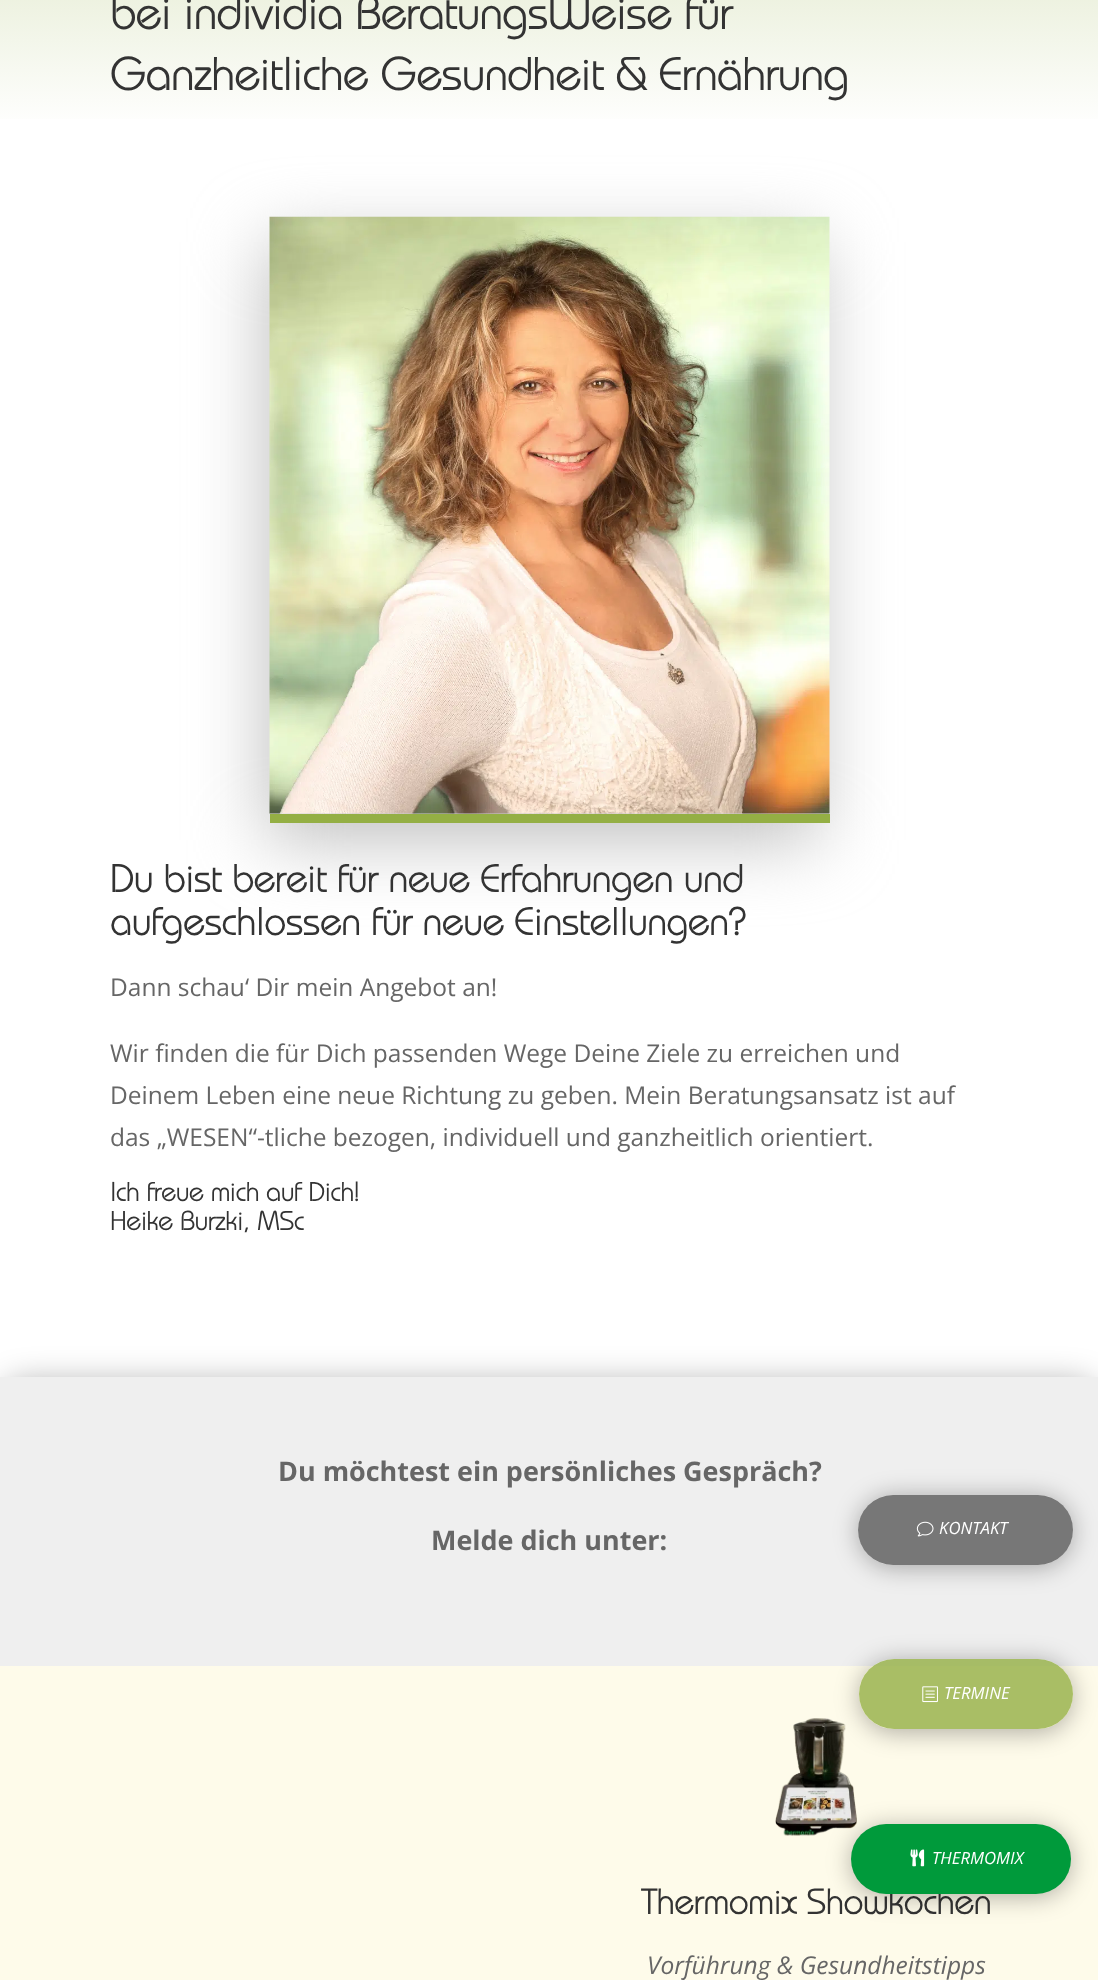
(async () => {
    const canvas = document.querySelector("canvas");
    canvas.width = 1098;
    canvas.height = 1980;
    const context = canvas.getContext("2d");
    context.miterLimit = 4;
    context.fontKerning = "normal";
    function write(s, x, y, font, color) {
        context.font = font;
        context.fillStyle = color;
        context.fillText(s, x, y);
    }
    function block(x, y, w, h, color) {
        context.fillStyle = color;
        context.fillRect(x, y, w, h);
    }
    function card(x, y, w, h, r, color) {
        context.fillStyle = color;
        context.beginPath();
        context.roundRect(x, y, w, h, r);
        context.fill();
    }
    async function photo(src, x, y, w, h) {
        const img = new Image();
        img.src = src;
        await img.decode();
        context.drawImage(img, x, y, w, h);
    }
    let gradient;

    block(0, 0, 1098, 1980, "rgb(255, 255, 255)");
    gradient = context.createLinearGradient(550, -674, 550, 130);
    gradient.addColorStop(0, "rgb(148, 175, 68)");
    gradient.addColorStop(1, "rgb(255, 255, 255)");
    context.fillStyle = gradient;
    context.fillRect(0, 0, 1098, 119);
    write("bei individia BeratungsWeise für", 110, 29, "bold 45.5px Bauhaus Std", "rgb(51, 51, 51)");
    write("Ganzheitliche Gesundheit & Ernährung", 110, 90, "bold 45.5px Bauhaus Std", "rgb(51, 51, 51)");
    context.fillStyle = "rgb(191, 191, 191)";
    context.filter = "blur(36px)";
    context.beginPath();
    context.rect(266, 242, 553, 598);
    context.fill();
    context.filter = "none";
    block(270, 814, 560, 9, "rgb(148, 175, 68)");
    await photo("media/1.png", 269, 216, 561, 598);
    write("Du bist bereit für neue Erfahrungen und", 110, 892, "bold 38.5px Bauhaus Std", "rgb(51, 51, 51)");
    write("aufgeschlossen für neue Einstellungen?", 110, 935, "bold 38.5px Bauhaus Std", "rgb(51, 51, 51)");
    write("Dann schau‘ Dir mein Angebot an!", 110, 996, "24.5px Open Sans", "rgb(102, 102, 102)");
    write("Wir finden die für Dich passenden Wege Deine Ziele zu erreichen und", 110, 1062, "24.5px Open Sans", "rgb(102, 102, 102)");
    write("Deinem Leben eine neue Richtung zu geben. Mein Beratungsansatz ist auf", 110, 1104, "24.5px Open Sans", "rgb(102, 102, 102)");
    write("das „WESEN“-tliche bezogen, individuell und ganzheitlich orientiert.", 110, 1146, "24.5px Open Sans", "rgb(102, 102, 102)");
    write("Ich freue mich auf Dich!", 110, 1201, "bold 26.25px Bauhaus Std", "rgb(51, 51, 51)");
    write("Heike Burzki, MSc", 110, 1230, "bold 26.25px Bauhaus Std", "rgb(51, 51, 51)");
    context.fillStyle = "rgba(0, 0, 0, 0.3)";
    context.filter = "blur(16px)";
    context.beginPath();
    context.roundRect(0, 1381, 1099, 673, 26);
    context.fill();
    context.filter = "none";
    block(0, 1666, 1098, 314, "rgb(254, 251, 234)");
    block(0, 1377, 1098, 289, "rgb(239, 239, 239)");
    write("Du möchtest ein persönliches Gespräch?", 278, 1481, "bold 26.95px Open Sans", "rgb(102, 102, 102)");
    write("Melde dich unter:", 431, 1550, "bold 26.95px Open Sans", "rgb(102, 102, 102)");
    await photo("media/2.png", 775, 1718, 82, 118);
    write("Thermomix Showkochen", 641, 1914, "bold 35px Bauhaus Std", "rgb(51, 51, 51)");
    write("Vorführung & Gesundheitstipps", 647, 1974, "italic 24.5px Open Sans", "rgb(102, 102, 102)");
    context.save();
    context.beginPath();
    context.moveTo(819, 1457);
    context.lineTo(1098, 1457);
    context.lineTo(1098, 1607);
    context.lineTo(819, 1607);
    context.closePath();
    context.moveTo(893, 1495);
    context.lineTo(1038, 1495);
    context.bezierCurveTo(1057.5, 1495, 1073, 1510.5, 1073, 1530);
    context.bezierCurveTo(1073, 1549.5, 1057.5, 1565, 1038, 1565);
    context.lineTo(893, 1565);
    context.bezierCurveTo(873.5, 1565, 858, 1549.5, 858, 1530);
    context.bezierCurveTo(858, 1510.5, 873.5, 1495, 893, 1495);
    context.closePath();
    context.clip("evenodd");
    context.fillStyle = "rgba(0, 0, 0, 0.3)";
    context.filter = "blur(12.5px)";
    context.beginPath();
    context.roundRect(858, 1496, 215, 72, 36);
    context.fill();
    context.filter = "none";
    context.restore();
    card(858, 1495, 215, 70, 35, "rgba(0, 0, 0, 0.5)");
    await photo("media/3.png", 916, 1521, 18, 16);
    write("KONTAKT", 939, 1534, "italic 16.75px Open Sans", "rgb(255, 255, 255)");
    context.save();
    context.beginPath();
    context.moveTo(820, 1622);
    context.lineTo(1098, 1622);
    context.lineTo(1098, 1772);
    context.lineTo(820, 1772);
    context.closePath();
    context.moveTo(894, 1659);
    context.lineTo(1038, 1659);
    context.bezierCurveTo(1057.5, 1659, 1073, 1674.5, 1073, 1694);
    context.bezierCurveTo(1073, 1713.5, 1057.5, 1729, 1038, 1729);
    context.lineTo(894, 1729);
    context.bezierCurveTo(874.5, 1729, 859, 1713.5, 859, 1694);
    context.bezierCurveTo(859, 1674.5, 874.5, 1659, 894, 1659);
    context.closePath();
    context.clip("evenodd");
    context.fillStyle = "rgba(0, 0, 0, 0.3)";
    context.filter = "blur(12.5px)";
    context.beginPath();
    context.roundRect(859, 1661, 214, 72, 36);
    context.fill();
    context.filter = "none";
    context.restore();
    card(859, 1659, 214, 70, 35, "rgba(148, 175, 68, 0.8)");
    await photo("media/4.png", 922, 1686, 16, 17);
    write("TERMINE", 944, 1699, "italic 16.75px Open Sans", "rgb(255, 255, 255)");
    context.fillStyle = "rgba(0, 0, 0, 0.3)";
    context.filter = "blur(12.5px)";
    context.beginPath();
    context.roundRect(851, 1827, 220, 70, 35);
    context.fill();
    context.filter = "none";
    card(851, 1824, 220, 70, 35, "rgb(0, 154, 59)");
    await photo("media/5.png", 910, 1849, 15, 18);
    write("THERMOMIX", 932, 1864, "italic 16.75px Open Sans", "rgb(255, 255, 255)");
})();
